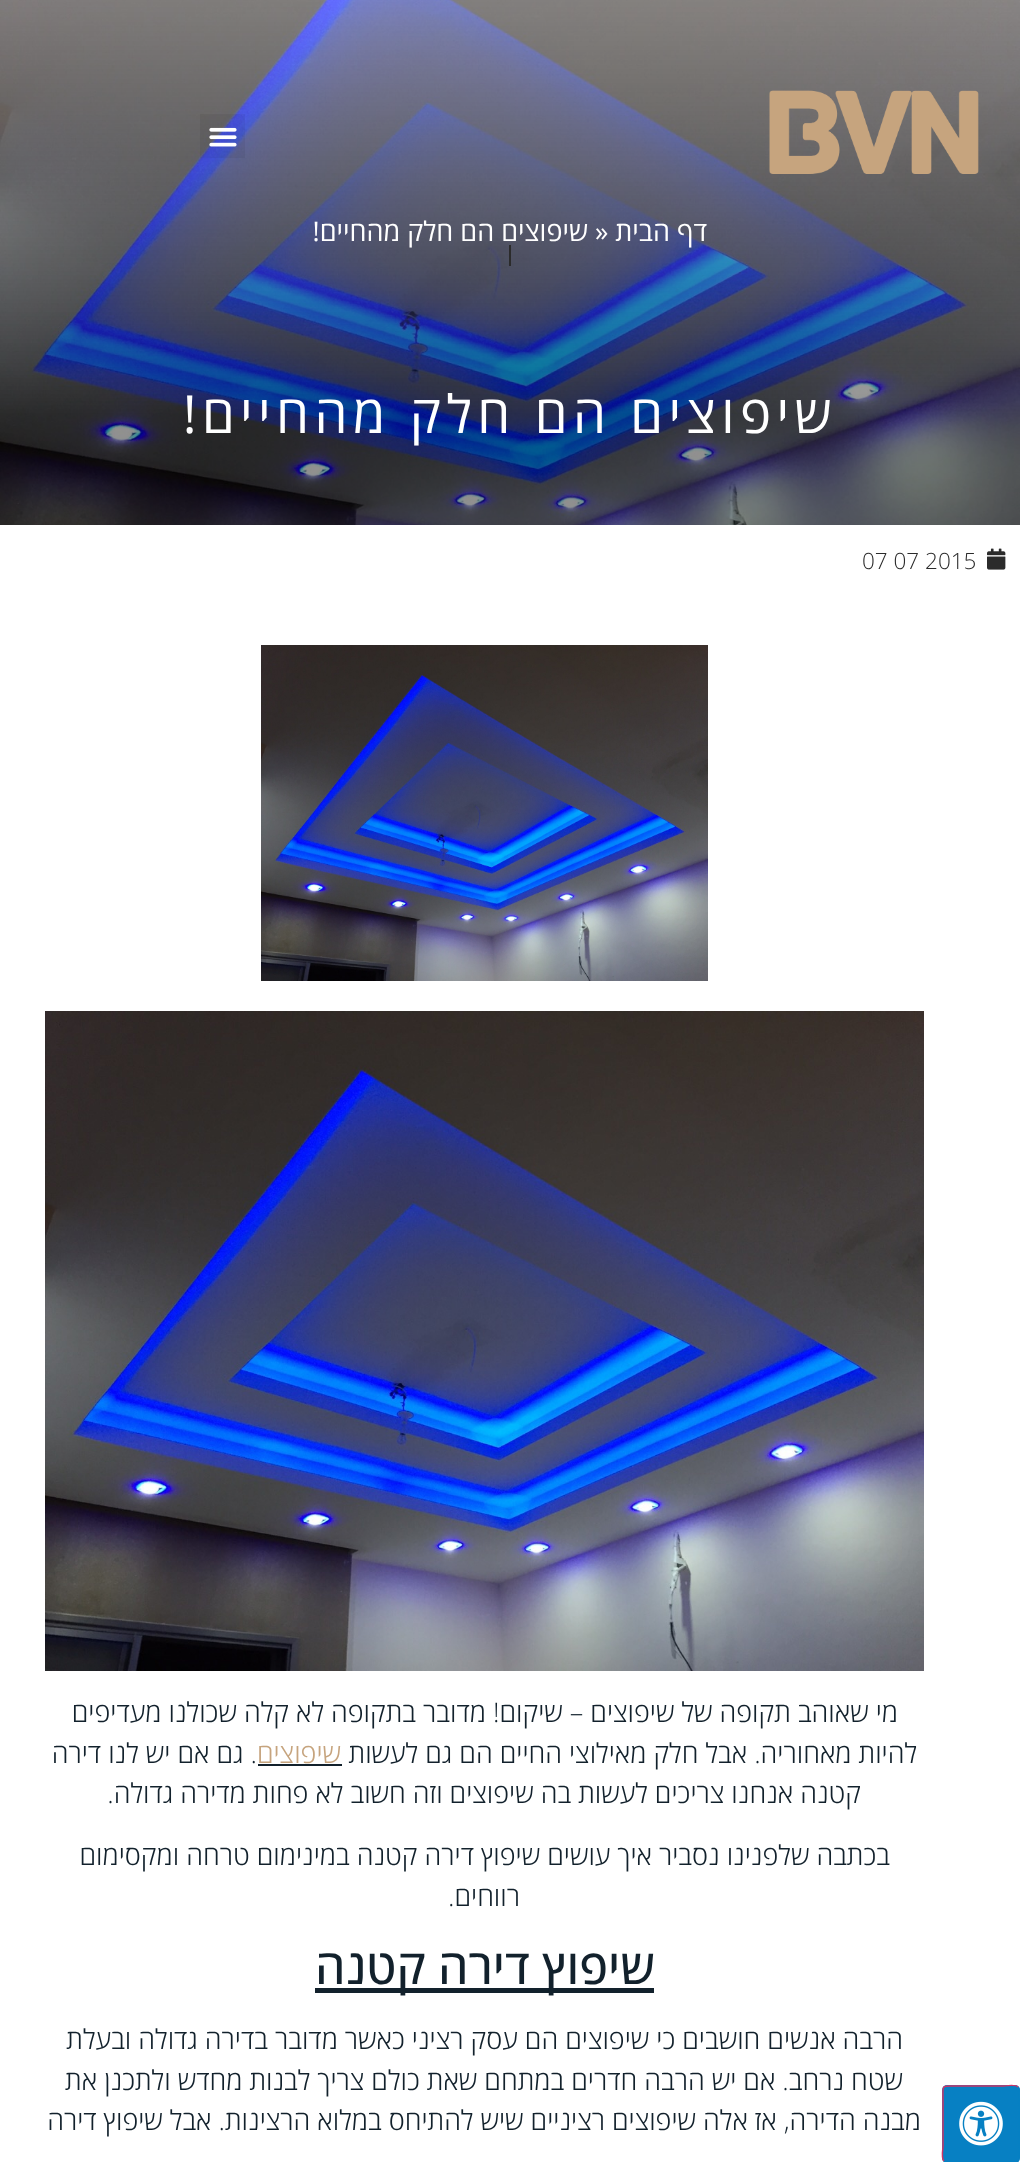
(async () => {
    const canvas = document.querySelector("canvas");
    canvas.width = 1020;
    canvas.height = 2162;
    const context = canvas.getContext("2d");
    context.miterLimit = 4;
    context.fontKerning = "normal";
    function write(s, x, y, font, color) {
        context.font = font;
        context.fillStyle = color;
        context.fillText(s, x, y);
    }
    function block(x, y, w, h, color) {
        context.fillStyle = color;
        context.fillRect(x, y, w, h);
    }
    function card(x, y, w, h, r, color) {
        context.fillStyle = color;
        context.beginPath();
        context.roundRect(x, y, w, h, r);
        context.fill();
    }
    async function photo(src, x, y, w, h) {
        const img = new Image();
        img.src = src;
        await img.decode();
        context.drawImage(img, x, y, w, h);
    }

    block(0, 0, 1020, 2162, "rgb(255, 255, 255)");
    card(942, 2085, 78, 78, 5, "rgb(7, 128, 195)");
    context.beginPath();
    context.moveTo(1018, 2087);
    context.bezierCurveTo(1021, 2089.5, 1019, 2100, 1019, 2101);
    context.lineTo(1019, 2147);
    context.bezierCurveTo(1019, 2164.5, 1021.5, 2162, 1004, 2162);
    context.lineTo(958, 2162);
    context.bezierCurveTo(957, 2162, 946.5, 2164, 944, 2161);
    context.strokeStyle = "rgb(7, 128, 195)";
    context.lineWidth = 1.5;
    context.stroke();
    context.beginPath();
    context.moveTo(944, 2161);
    context.bezierCurveTo(941, 2158.5, 943, 2148, 943, 2147);
    context.lineTo(943, 2101);
    context.bezierCurveTo(943, 2083.5, 940.5, 2086, 958, 2086);
    context.lineTo(1004, 2086);
    context.bezierCurveTo(1005, 2086, 1015.5, 2084, 1018, 2087);
    context.strokeStyle = "rgb(204, 51, 102)";
    context.stroke();
    await photo("media/1.png", 959, 2101, 44, 45);
    await photo("media/2.png", 0, 0, 1020, 525);
    await photo("media/3.png", 769, 90, 210, 84);
    block(200, 114, 45, 44, "rgba(0, 0, 0, 0.05)");
    await photo("media/4.png", 209, 127, 28, 20);
    context.direction = "rtl";
    write("דף הבית", 707, 241, "27px Open Sans", "rgb(255, 255, 255)");
    context.direction = "ltr";
    write("»", 595, 241, "27px Open Sans", "rgb(255, 255, 255)");
    context.direction = "rtl";
    write("שיפוצים הם חלק מהחיים!", 588, 241, "27px Open Sans", "rgb(255, 255, 255)");
    block(509, 245, 2, 21, "rgb(43, 43, 43)");
    context.letterSpacing = "5.4px";
    write("שיפוצים הם חלק מהחיים!", 837, 433, "52.5px Open Sans", "rgb(255, 255, 255)");
    await photo("media/5.png", 987, 548, 19, 22);
    context.letterSpacing = "0px";
    context.direction = "ltr";
    write("07 07 2015", 862, 569, "300 22.5px Open Sans", "rgb(43, 43, 43)");
    await photo("media/6.png", 261, 645, 447, 336);
    await photo("media/7.png", 45, 1011, 879, 660);
    context.direction = "rtl";
    write("מי שאוהב תקופה של שיפוצים – שיקום! מדובר בתקופה לא קלה שכולנו מעדיפים", 898, 1722, "300 27px Open Sans", "rgb(18, 33, 44)");
    write("להיות מאחוריה. אבל חלק מאילוצי החיים הם גם לעשות", 917, 1763, "300 27px Open Sans", "rgb(18, 33, 44)");
    write("שיפוצים", 341, 1763, "300 27px Open Sans", "rgb(198, 164, 126)");
    block(258, 1764, 84, 2, "rgb(18, 33, 44)");
    write(". גם אם יש לנו דירה", 257, 1763, "300 27px Open Sans", "rgb(18, 33, 44)");
    write("קטנה אנחנו צריכים לעשות בה שיפוצים וזה חשוב לא פחות מדירה גדולה.", 861, 1803, "300 27px Open Sans", "rgb(18, 33, 44)");
    write("בכתבה שלפנינו נסביר איך עושים שיפוץ דירה קטנה במינימום טרחה ומקסימום", 890, 1865, "300 27px Open Sans", "rgb(18, 33, 44)");
    write("רווחים.", 520, 1906, "300 27px Open Sans", "rgb(18, 33, 44)");
    block(315, 1988, 339, 5, "rgb(18, 33, 44)");
    write("שיפוץ דירה קטנה", 655, 1984, "500 48px Open Sans", "rgb(18, 33, 44)");
    write("הרבה אנשים חושבים כי שיפוצים הם עסק רציני כאשר מדובר בדירה גדולה ובעלת", 903, 2049, "300 27px Open Sans", "rgb(18, 33, 44)");
    write("שטח נרחב. אם יש הרבה חדרים במתחם שאת כולם צריך לבנות מחדש ולתכנן את", 903, 2090, "300 27px Open Sans", "rgb(18, 33, 44)");
    write("מבנה הדירה, אז אלה שיפוצים רציניים שיש להתיחס במלוא הרצינות. אבל שיפוץ דירה", 921, 2130, "300 27px Open Sans", "rgb(18, 33, 44)");
})();
